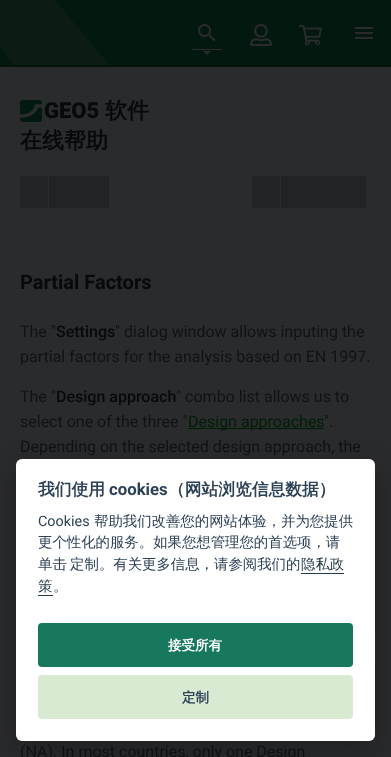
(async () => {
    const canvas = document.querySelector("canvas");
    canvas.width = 391;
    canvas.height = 757;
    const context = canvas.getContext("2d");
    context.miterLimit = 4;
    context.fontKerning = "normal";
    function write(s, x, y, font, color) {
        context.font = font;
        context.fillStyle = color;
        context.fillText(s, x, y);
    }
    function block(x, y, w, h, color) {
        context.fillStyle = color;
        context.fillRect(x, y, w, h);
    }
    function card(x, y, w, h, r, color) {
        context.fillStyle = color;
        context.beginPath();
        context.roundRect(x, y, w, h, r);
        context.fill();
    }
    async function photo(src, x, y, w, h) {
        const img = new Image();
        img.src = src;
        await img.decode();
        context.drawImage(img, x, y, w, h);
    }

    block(0, 0, 391, 757, "rgb(42, 43, 45)");
    block(0, 0, 391, 65, "rgb(3, 24, 14)");
    block(0, 65, 391, 2, "rgb(3, 20, 13)");
    context.save();
    context.beginPath();
    context.rect(0, 0, 110, 65);
    context.clip();
    context.fillStyle = "rgb(12, 28, 21)";
    context.beginPath();
    context.moveTo(0, -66);
    context.lineTo(110, 66);
    context.lineTo(110, 179);
    context.lineTo(0, 48);
    context.closePath();
    context.fill();
    context.restore();
    await photo("media/1.png", 198, 24, 18, 18);
    block(192, 49, 30, 1, "rgb(42, 43, 45)");
    context.beginPath();
    context.moveTo(203, 51);
    context.lineTo(211, 51);
    context.lineTo(207, 55);
    context.closePath();
    context.fill();
    await photo("media/2.png", 250, 24, 22, 22);
    await photo("media/3.png", 299, 25, 23, 20);
    await photo("media/4.png", 355, 27, 18, 12);
    await photo("media/5.png", 20, 100, 22, 22);
    write("GEO5", 44, 118, "900 22px Roboto", "rgb(8, 9, 11)");
    write("软件", 105, 118, "bold 22px WenQuanYi Zen Hei", "rgb(8, 9, 11)");
    write("在线帮助", 20, 148, "bold 22px WenQuanYi Zen Hei", "rgb(8, 9, 11)");
    block(20, 176, 89, 32, "rgb(33, 35, 37)");
    block(48, 176, 1, 32, "rgb(42, 43, 45)");
    block(252, 176, 114, 32, "rgb(33, 35, 37)");
    block(280, 176, 1, 32, "rgb(42, 43, 45)");
    write("Partial Factors", 20, 289, "bold 20px Roboto", "rgb(8, 9, 11)");
    write("The \"", 20, 337, "16px Roboto", "rgb(16, 19, 21)");
    write("Settings", 56, 337, "500 16px Roboto", "rgb(8, 9, 11)");
    write("\" dialog window allows inputing the", 115, 337, "16px Roboto", "rgb(16, 19, 21)");
    write("partial factors for the analysis based on EN 1997.", 20, 362, "16px Roboto", "rgb(16, 19, 21)");
    write("The \"", 20, 402, "16px Roboto", "rgb(16, 19, 21)");
    write("Design approach", 56, 402, "500 16px Roboto", "rgb(8, 9, 11)");
    write("\" combo list allows us to", 176, 402, "16px Roboto", "rgb(16, 19, 21)");
    write("select one of the three \"", 20, 427, "16px Roboto", "rgb(16, 19, 21)");
    block(188, 428, 136, 1, "rgb(3, 28, 7)");
    write("Design approaches", 188, 427, "16px Roboto", "rgb(3, 28, 7)");
    write("\".", 324, 427, "16px Roboto", "rgb(16, 19, 21)");
    write("Depending on the selected design approach, the", 20, 452, "16px Roboto", "rgb(16, 19, 21)");
    write("(NA). In most countries, only one Design", 20, 757, "16px Roboto", "rgb(16, 19, 21)");
    context.fillStyle = "rgba(2, 2, 3, 0.28)";
    context.filter = "blur(15px)";
    context.beginPath();
    context.roundRect(16, 469, 359, 282, 6);
    context.fill();
    context.filter = "none";
    card(16, 459, 359, 282, 6, "rgb(255, 255, 255)");
    write("我们使用", 38, 495, "bold 16.75px WenQuanYi Zen Hei", "rgb(45, 65, 86)");
    write("cookies", 109, 495, "bold 16.75px Roboto", "rgb(45, 65, 86)");
    write("（网站浏览信息数据）", 168, 495, "bold 16.75px WenQuanYi Zen Hei", "rgb(45, 65, 86)");
    write("Cookies", 38, 526, "14.4px Roboto", "rgb(45, 65, 86)");
    write("帮助我们改善您的网站体验，并为您提供", 94, 526, "500 14.4px WenQuanYi Zen Hei", "rgb(45, 65, 86)");
    write("更个性化的服务。如果您想管理您的首选项，请", 38, 547, "500 14.4px WenQuanYi Zen Hei", "rgb(45, 65, 86)");
    context.wordSpacing = "-1px";
    write("单击 定制。有关更多信息，请参阅我们的", 38, 569, "500 14.4px WenQuanYi Zen Hei", "rgb(45, 65, 86)");
    context.wordSpacing = "0px";
    write("隐私政", 301, 569, "500 14.4px WenQuanYi Zen Hei", "rgb(37, 59, 72)");
    block(301, 573, 43, 1, "rgb(37, 59, 72)");
    write("策", 38, 591, "500 14.4px WenQuanYi Zen Hei", "rgb(37, 59, 72)");
    block(38, 595, 15, 1, "rgb(37, 59, 72)");
    write("。", 53, 591, "500 14.4px WenQuanYi Zen Hei", "rgb(45, 65, 86)");
    card(38, 623, 315, 44, 4, "rgb(23, 120, 94)");
    write("接受所有", 168, 650, "bold 13.5px WenQuanYi Zen Hei", "rgb(255, 255, 255)");
    card(38, 675, 315, 44, 4, "rgb(217, 234, 211)");
    write("定制", 182, 702, "bold 13.5px WenQuanYi Zen Hei", "rgb(45, 65, 86)");
})();
